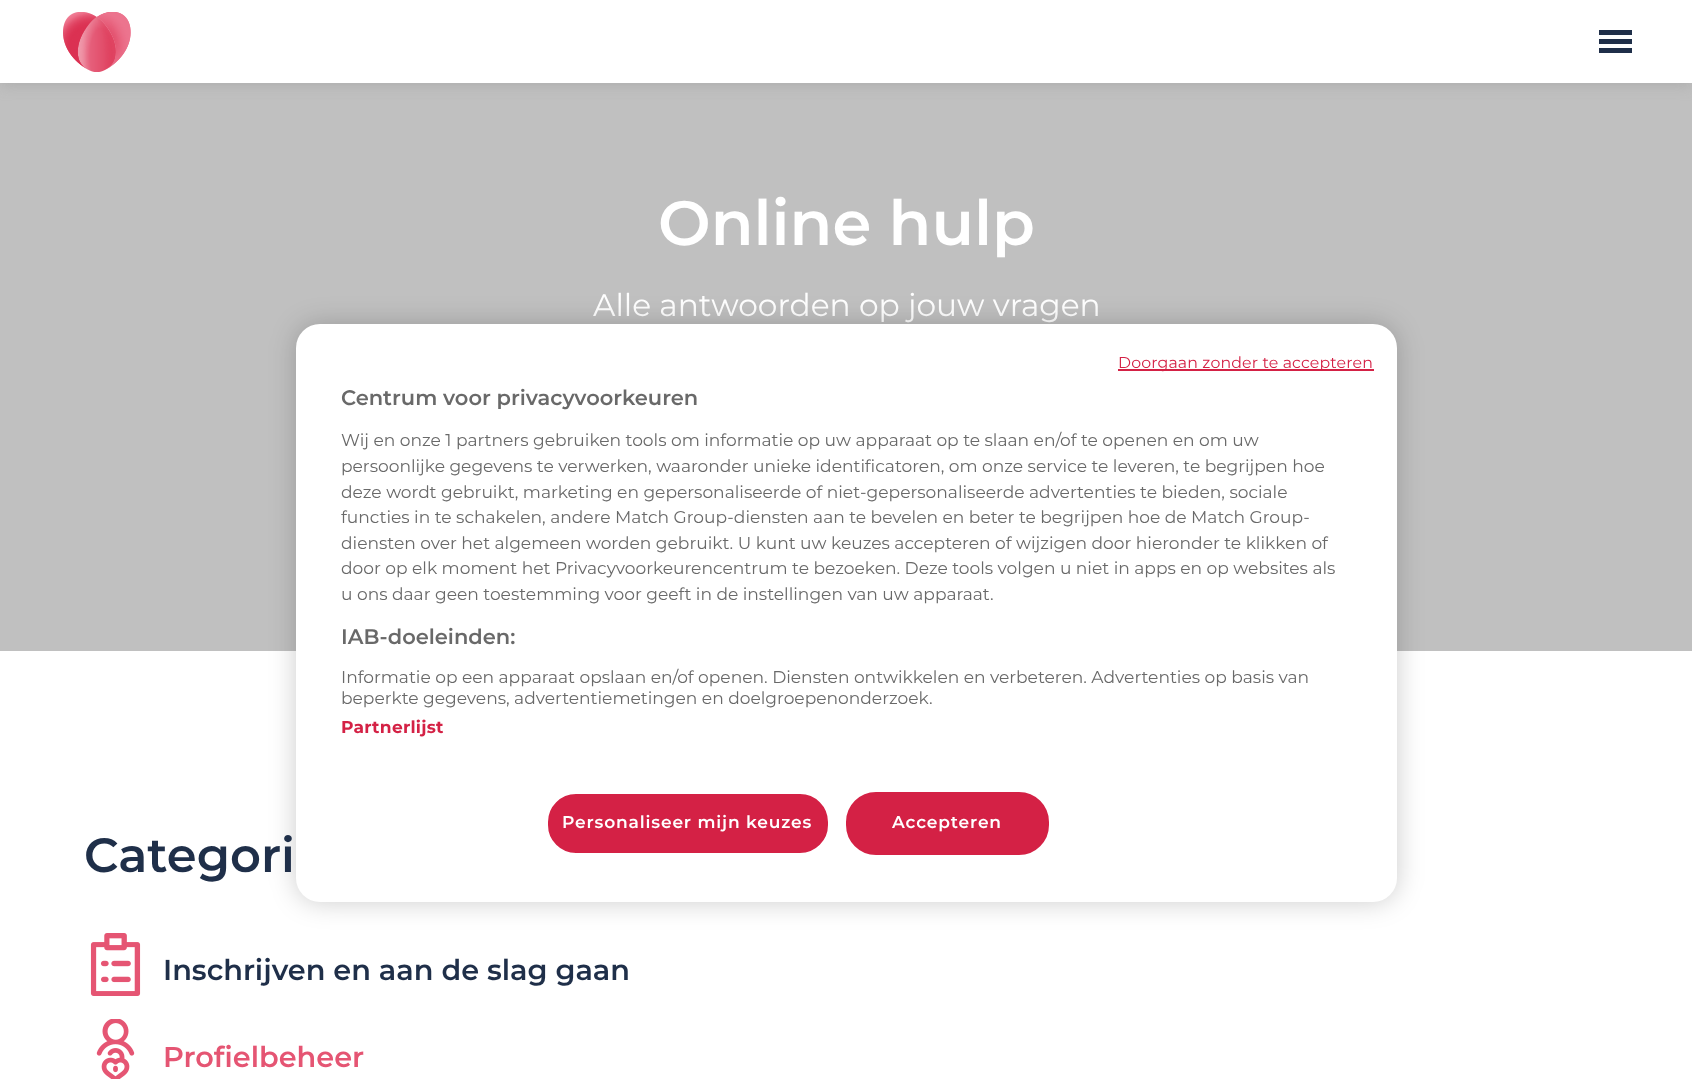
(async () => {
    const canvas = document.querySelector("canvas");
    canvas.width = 1692;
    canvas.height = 1079;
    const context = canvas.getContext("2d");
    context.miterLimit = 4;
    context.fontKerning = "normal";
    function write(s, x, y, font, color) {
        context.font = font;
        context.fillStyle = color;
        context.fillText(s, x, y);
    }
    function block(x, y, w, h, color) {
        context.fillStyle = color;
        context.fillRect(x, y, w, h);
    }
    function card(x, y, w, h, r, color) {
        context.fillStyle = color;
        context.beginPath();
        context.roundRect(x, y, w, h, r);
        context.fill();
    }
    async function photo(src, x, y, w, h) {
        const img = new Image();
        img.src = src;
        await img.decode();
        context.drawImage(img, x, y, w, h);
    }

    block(0, 0, 1692, 1079, "rgb(255, 255, 255)");
    block(0, 83, 1692, 568, "rgb(192, 192, 192)");
    context.fillStyle = "rgba(148, 148, 148, 0.52)";
    context.filter = "blur(7.5px)";
    context.beginPath();
    context.rect(0, 2, 1692, 82);
    context.fill();
    context.filter = "none";
    block(0, 0, 1692, 83, "rgb(255, 255, 255)");
    await photo("media/1.png", 63, 12, 68, 60);
    block(1599, 30, 33, 5, "rgb(31, 47, 73)");
    block(1599, 39, 33, 5, "rgb(31, 47, 73)");
    block(1599, 48, 33, 5, "rgb(31, 47, 73)");
    write("Online hulp", 658, 245, "600 62.5px Montserrat", "rgb(255, 255, 255)");
    write("Alle antwoorden op jouw vragen", 593, 316, "31.25px Montserrat", "rgb(255, 255, 255)");
    context.fillStyle = "rgba(0, 0, 0, 0.2)";
    context.filter = "blur(13.5px)";
    context.beginPath();
    context.roundRect(296, 324, 1101, 578, 24);
    context.fill();
    context.filter = "none";
    card(296, 324, 1101, 578, 24, "rgb(255, 255, 255)");
    block(1118, 369, 256, 2, "rgb(212, 33, 69)");
    context.letterSpacing = "0.15px";
    write("Doorgaan zonder te accepteren", 1118, 368, "15.75px Montserrat", "rgb(212, 33, 69)");
    context.letterSpacing = "0px";
    write("Centrum voor privacyvoorkeuren", 341, 405, "600 21px Montserrat", "rgb(105, 105, 105)");
    write("Wij en onze 1 partners gebruiken tools om informatie op uw apparaat op te slaan en/of te openen en om uw", 341, 446, "17.07px Montserrat", "rgb(105, 105, 105)");
    write("persoonlijke gegevens te verwerken, waaronder unieke identificatoren, om onze service te leveren, te begrijpen hoe", 341, 472, "17.07px Montserrat", "rgb(105, 105, 105)");
    write("deze wordt gebruikt, marketing en gepersonaliseerde of niet-gepersonaliseerde advertenties te bieden, sociale", 341, 498, "17.07px Montserrat", "rgb(105, 105, 105)");
    write("functies in te schakelen, andere Match Group-diensten aan te bevelen en beter te begrijpen hoe de Match Group-", 341, 523, "17.07px Montserrat", "rgb(105, 105, 105)");
    write("diensten over het algemeen worden gebruikt. U kunt uw keuzes accepteren of wijzigen door hieronder te klikken of", 341, 549, "17.07px Montserrat", "rgb(105, 105, 105)");
    write("door op elk moment het Privacyvoorkeurencentrum te bezoeken. Deze tools volgen u niet in apps en op websites als", 341, 574, "17.07px Montserrat", "rgb(105, 105, 105)");
    write("u ons daar geen toestemming voor geeft in de instellingen van uw apparaat.", 341, 600, "17.07px Montserrat", "rgb(105, 105, 105)");
    write("IAB-doeleinden:", 341, 644, "600 21px Montserrat", "rgb(105, 105, 105)");
    write("Informatie op een apparaat opslaan en/of openen. Diensten ontwikkelen en verbeteren. Advertenties op basis van", 341, 683, "17.07px Montserrat", "rgb(105, 105, 105)");
    write("beperkte gegevens, advertentiemetingen en doelgroepenonderzoek.", 341, 704, "17.07px Montserrat", "rgb(105, 105, 105)");
    context.letterSpacing = "0.25px";
    write("Partnerlijst", 341, 733, "bold 17.07px Montserrat", "rgb(212, 33, 69)");
    context.beginPath();
    context.roundRect(547, 793, 282, 61, 29);
    context.fill();
    context.strokeStyle = "rgb(255, 255, 255)";
    context.lineWidth = 2;
    context.stroke();
    context.letterSpacing = "0.85px";
    write("Personaliseer mijn keuzes", 562, 828, "600 17.07px Montserrat", "rgb(255, 255, 255)");
    context.fillStyle = "rgb(212, 33, 69)";
    context.beginPath();
    context.roundRect(847, 793, 201, 61, 29);
    context.fill();
    context.strokeStyle = "rgb(212, 33, 69)";
    context.stroke();
    write("Accepteren", 892, 828, "600 17.07px Montserrat", "rgb(255, 255, 255)");
    context.letterSpacing = "0px";
    write("Categori", 84, 872, "600 48px Montserrat", "rgb(31, 47, 73)");
    await photo("media/2.png", 90, 933, 51, 63);
    write("Inschrijven en aan de slag gaan", 163, 980, "600 28.75px Montserrat", "rgb(31, 47, 73)");
    await photo("media/3.png", 96, 1019, 39, 60);
    write("Profielbeheer", 163, 1067, "600 28.75px Montserrat", "rgb(229, 85, 115)");
})();
